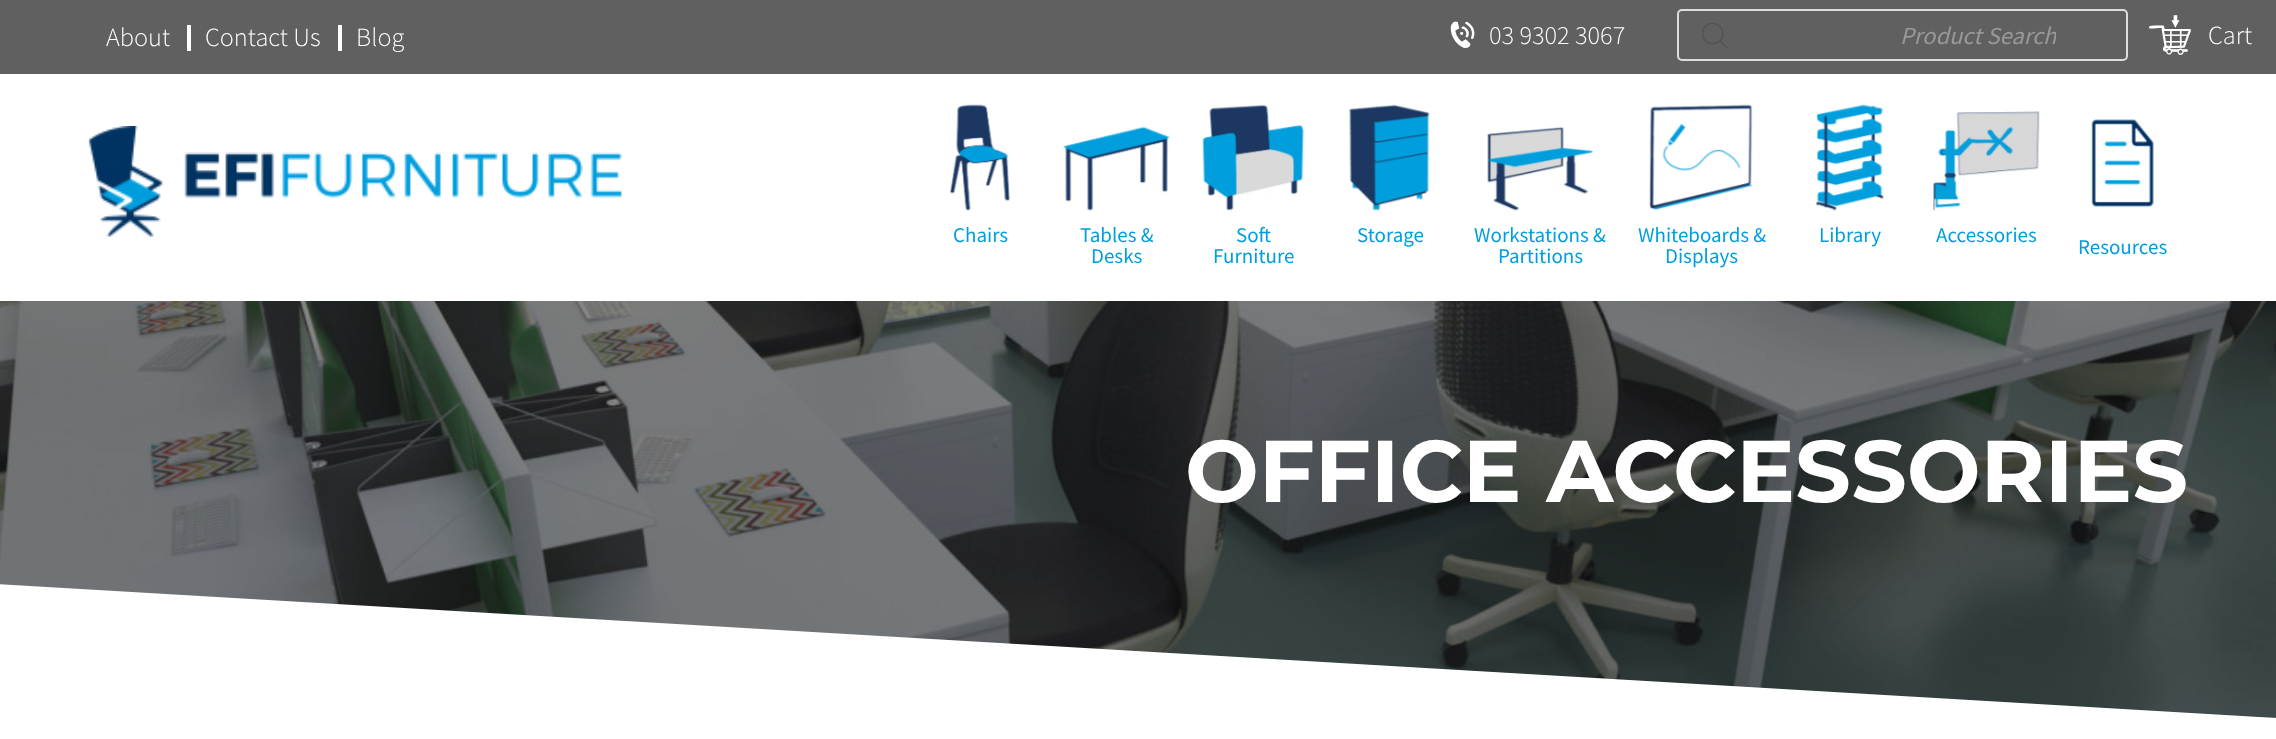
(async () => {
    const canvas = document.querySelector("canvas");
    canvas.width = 2276;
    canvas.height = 739;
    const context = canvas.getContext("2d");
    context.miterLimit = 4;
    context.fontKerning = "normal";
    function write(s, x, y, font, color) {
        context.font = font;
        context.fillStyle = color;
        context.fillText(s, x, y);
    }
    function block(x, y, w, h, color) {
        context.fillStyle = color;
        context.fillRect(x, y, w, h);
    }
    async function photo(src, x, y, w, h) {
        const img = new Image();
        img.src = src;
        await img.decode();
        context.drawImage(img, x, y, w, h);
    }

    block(0, 0, 2276, 739, "rgb(255, 255, 255)");
    block(0, 0, 2276, 74, "rgb(96, 96, 96)");
    write("About", 106, 46, "300 26.25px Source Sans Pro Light", "rgb(255, 255, 255)");
    block(187, 25, 4, 26, "rgb(255, 255, 255)");
    write("Contact Us", 205, 46, "300 26.25px Source Sans Pro Light", "rgb(255, 255, 255)");
    block(338, 25, 4, 26, "rgb(255, 255, 255)");
    write("Blog", 356, 46, "300 26.25px Source Sans Pro Light", "rgb(255, 255, 255)");
    write("\"", 1449, 46, "26.25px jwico", "rgb(255, 255, 255)");
    write("03 9302 3067", 1489, 44, "300 26.25px Source Sans Pro Light", "rgb(255, 255, 255)");
    context.beginPath();
    context.roundRect(1678, 10, 449, 50, 4);
    context.strokeStyle = "rgb(221, 221, 221)";
    context.lineWidth = 2;
    context.stroke();
    await photo("media/1.png", 1702, 23, 26, 26);
    context.save();
    context.beginPath();
    context.rect(1748, 19, 308, 32);
    context.clip();
    write("Product Search", 1900, 44, "italic 24.5px Source Sans Pro", "rgb(153, 153, 153)");
    context.restore();
    write("!", 2149, 53, "42px jwico", "rgb(255, 255, 255)");
    write("Cart", 2208, 44, "300 26.25px Source Sans Pro Light", "rgb(255, 255, 255)");
    await photo("media/2.png", 88, 126, 534, 111);
    await photo("media/3.png", 950, 104, 60, 107);
    write("Chairs", 953, 242, "21px Source Sans Pro", "rgb(0, 158, 222)");
    await photo("media/4.png", 1063, 126, 107, 85);
    write("Tables &", 1080, 242, "21px Source Sans Pro", "rgb(0, 158, 222)");
    write("Desks", 1091, 263, "21px Source Sans Pro", "rgb(0, 158, 222)");
    await photo("media/5.png", 1202, 104, 103, 107);
    write("Soft", 1236, 242, "21px Source Sans Pro", "rgb(0, 158, 222)");
    write("Furniture", 1213, 263, "21px Source Sans Pro", "rgb(0, 158, 222)");
    await photo("media/6.png", 1349, 104, 81, 107);
    write("Storage", 1357, 242, "21px Source Sans Pro", "rgb(0, 158, 222)");
    await photo("media/7.png", 1487, 127, 106, 84);
    write("Workstations &", 1474, 242, "21px Source Sans Pro", "rgb(0, 158, 222)");
    write("Partitions", 1498, 263, "21px Source Sans Pro", "rgb(0, 158, 222)");
    await photo("media/8.png", 1649, 104, 104, 107);
    write("Whiteboards &", 1638, 242, "21px Source Sans Pro", "rgb(0, 158, 222)");
    write("Displays", 1665, 263, "21px Source Sans Pro", "rgb(0, 158, 222)");
    await photo("media/9.png", 1816, 104, 68, 107);
    write("Library", 1819, 242, "21px Source Sans Pro", "rgb(0, 158, 222)");
    await photo("media/10.png", 1933, 111, 107, 100);
    write("Accessories", 1936, 242, "21px Source Sans Pro", "rgb(0, 158, 222)");
    await photo("media/11.png", 2091, 119, 63, 89);
    write("Resources", 2078, 254, "21px Source Sans Pro", "rgb(0, 158, 222)");
    block(2260, 717, 16, 1, "rgb(111, 111, 111)");
    await photo("media/12.png", 0, 301, 2276, 417);
    write("OFFICE ACCESSORIES", 1185, 502, "100 87.5px Montserrat", "rgb(255, 255, 255)");
    context.beginPath();
    context.moveTo(-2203, 718);
    context.lineTo(-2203, 455);
    context.lineTo(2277, 718);
    context.closePath();
    context.fill();
})();
